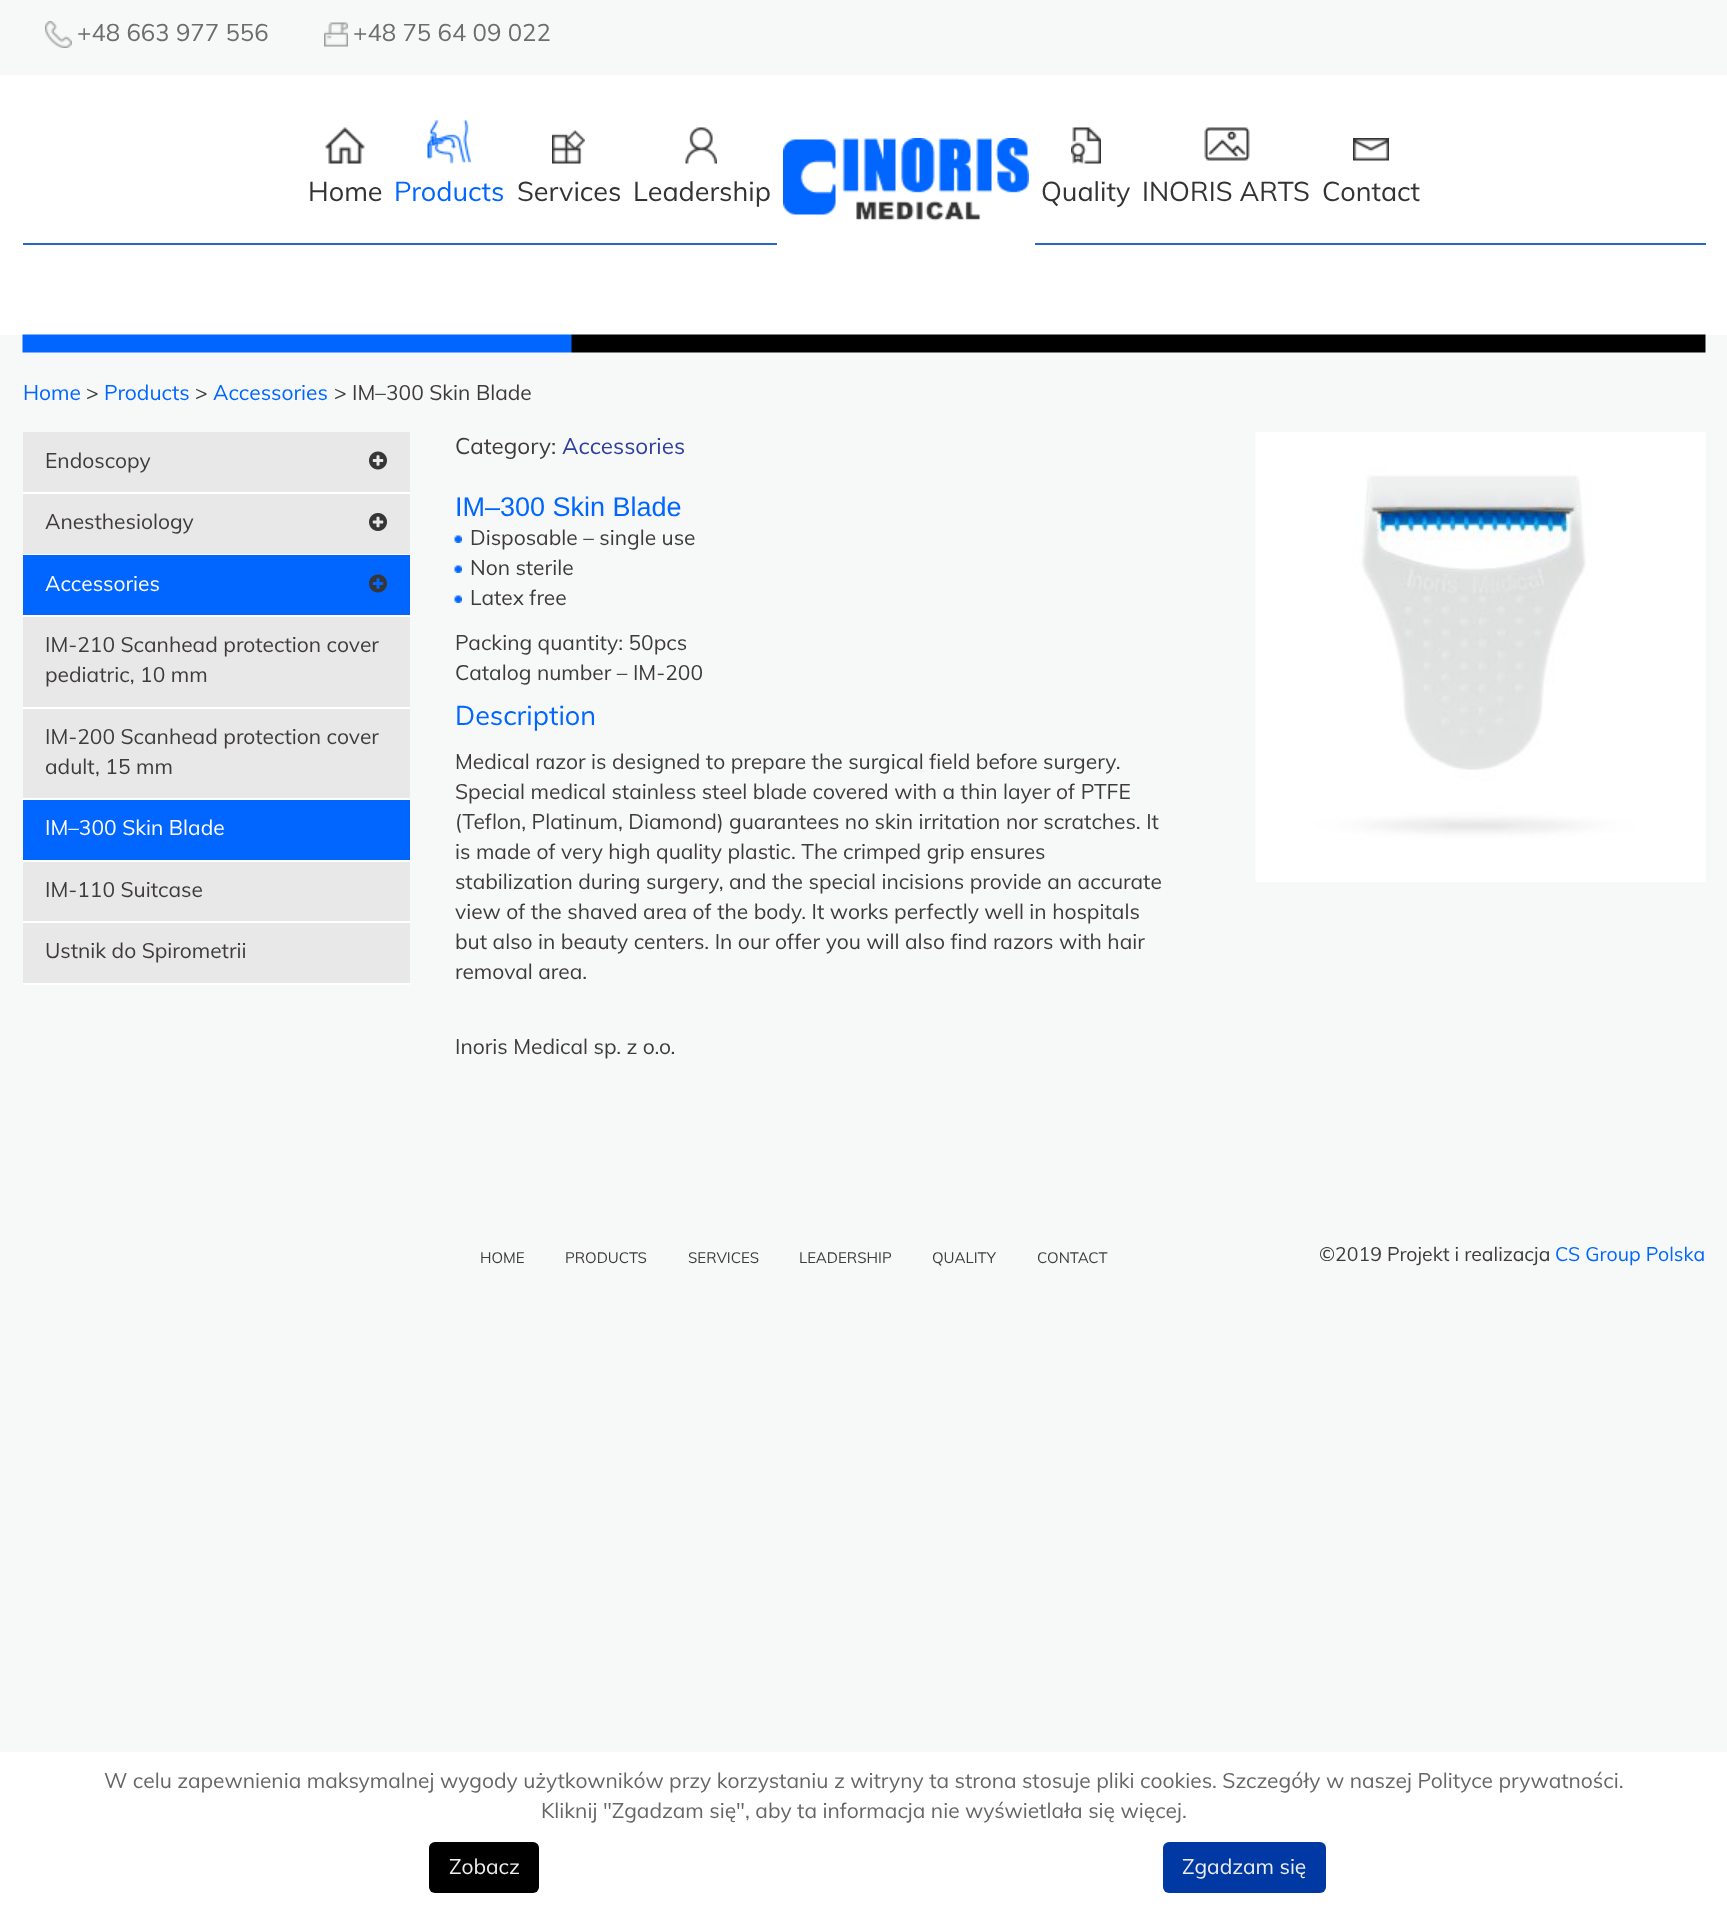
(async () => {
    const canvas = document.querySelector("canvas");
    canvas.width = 1727;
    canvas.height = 1907;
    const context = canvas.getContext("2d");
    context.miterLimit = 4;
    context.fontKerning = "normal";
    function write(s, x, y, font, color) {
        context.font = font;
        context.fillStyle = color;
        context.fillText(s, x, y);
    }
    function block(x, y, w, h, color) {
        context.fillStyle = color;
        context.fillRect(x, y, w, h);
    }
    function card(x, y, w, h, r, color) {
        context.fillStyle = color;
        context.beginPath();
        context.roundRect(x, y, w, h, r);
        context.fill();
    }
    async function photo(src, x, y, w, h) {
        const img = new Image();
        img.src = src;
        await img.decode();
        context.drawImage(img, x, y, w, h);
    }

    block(0, 0, 1727, 1907, "rgb(247, 249, 249)");
    await photo("media/1.png", 45, 21, 27, 27);
    write("+48 663 977 556", 77, 41, "24px muli", "rgb(109, 109, 109)");
    await photo("media/2.png", 324, 22, 24, 25);
    write("+48 75 64 09 022", 353, 41, "24px muli", "rgb(109, 109, 109)");
    block(0, 75, 1727, 260, "rgb(255, 255, 255)");
    await photo("media/3.png", 325, 127, 40, 37);
    write("Home", 308, 201, "27px muli", "rgb(51, 51, 51)");
    await photo("media/4.png", 427, 120, 44, 44);
    write("Products", 394, 201, "27px muli", "rgb(0, 102, 255)");
    await photo("media/5.png", 552, 130, 33, 34);
    write("Services", 517, 201, "27px muli", "rgb(51, 51, 51)");
    await photo("media/6.png", 685, 127, 32, 37);
    write("Leadership", 633, 201, "27px muli", "rgb(51, 51, 51)");
    block(23, 243, 1683, 2, "rgb(40, 103, 198)");
    block(777, 243, 258, 2, "rgb(255, 255, 255)");
    await photo("media/7.png", 783, 138, 246, 83);
    await photo("media/8.png", 1071, 127, 30, 37);
    write("Quality", 1041, 201, "27px muli", "rgb(51, 51, 51)");
    await photo("media/9.png", 1204, 127, 46, 34);
    write("INORIS ARTS", 1142, 201, "27px muli", "rgb(51, 51, 51)");
    await photo("media/10.png", 1353, 138, 36, 23);
    write("Contact", 1322, 201, "27px muli", "rgb(51, 51, 51)");
    await photo("media/11.png", 22, 334, 1684, 19);
    write("Home", 23, 400, "21px muli", "rgb(0, 102, 255)");
    write(">", 86, 400, "21px muli", "rgb(62, 59, 58)");
    write("Products", 104, 400, "21px muli", "rgb(0, 102, 255)");
    write(">", 195, 400, "21px muli", "rgb(62, 59, 58)");
    write("Accessories", 213, 400, "21px muli", "rgb(0, 102, 255)");
    write("> IM–300 Skin Blade", 334, 400, "21px muli", "rgb(62, 59, 58)");
    block(23, 432, 387, 551, "rgb(232, 232, 232)");
    block(23, 492, 387, 2, "rgb(255, 255, 255)");
    write("Endoscopy", 45, 468, "21px muli", "rgb(62, 59, 58)");
    await photo("media/12.png", 369, 451, 18, 19);
    block(23, 554, 387, 1, "rgb(255, 255, 255)");
    write("Anesthesiology", 45, 529, "21px muli", "rgb(62, 59, 58)");
    await photo("media/13.png", 369, 513, 18, 18);
    block(23, 555, 387, 60, "rgb(0, 102, 255)");
    block(23, 615, 387, 2, "rgb(255, 255, 255)");
    write("Accessories", 45, 591, "21px muli", "rgb(255, 255, 255)");
    await photo("media/14.png", 369, 574, 18, 19);
    block(23, 707, 387, 2, "rgb(255, 255, 255)");
    write("IM-210 Scanhead protection cover", 45, 652, "21px muli", "rgb(62, 59, 58)");
    write("pediatric, 10 mm", 45, 682, "21px muli", "rgb(62, 59, 58)");
    block(23, 798, 387, 2, "rgb(255, 255, 255)");
    write("IM-200 Scanhead protection cover", 45, 744, "21px muli", "rgb(62, 59, 58)");
    write("adult, 15 mm", 45, 774, "21px muli", "rgb(62, 59, 58)");
    block(23, 800, 387, 60, "rgb(0, 102, 255)");
    block(23, 860, 387, 2, "rgb(255, 255, 255)");
    write("IM–300 Skin Blade", 45, 835, "21px muli", "rgb(255, 255, 255)");
    block(23, 921, 387, 2, "rgb(255, 255, 255)");
    write("IM-110 Suitcase", 45, 897, "21px muli", "rgb(62, 59, 58)");
    block(23, 983, 387, 2, "rgb(255, 255, 255)");
    write("Ustnik do Spirometrii", 45, 958, "21px muli", "rgb(62, 59, 58)");
    write("Category:", 455, 454, "22.5px muli", "rgb(62, 59, 58)");
    write("Accessories", 562, 454, "22.5px muli", "rgb(48, 63, 159)");
    write("IM–300 Skin Blade", 455, 516, "27px Liberation Sans", "rgb(0, 102, 255)");
    await photo("media/15.png", 454, 535, 8, 8);
    write("Disposable – single use", 470, 545, "21px muli", "rgb(62, 59, 58)");
    await photo("media/15.png", 454, 565, 8, 8);
    write("Non sterile", 470, 575, "21px muli", "rgb(62, 59, 58)");
    await photo("media/15.png", 454, 595, 8, 8);
    write("Latex free", 470, 605, "21px muli", "rgb(62, 59, 58)");
    write("Packing quantity: 50pcs", 455, 650, "21px muli", "rgb(62, 59, 58)");
    write("Catalog number – IM-200", 455, 680, "21px muli", "rgb(62, 59, 58)");
    write("Description", 455, 725, "27px muli", "rgb(0, 102, 255)");
    write("Medical razor is designed to prepare the surgical field before surgery.", 455, 769, "21px muli", "rgb(62, 59, 58)");
    write("Special medical stainless steel blade covered with a thin layer of PTFE", 455, 799, "21px muli", "rgb(62, 59, 58)");
    write("(Teflon, Platinum, Diamond) guarantees no skin irritation nor scratches. It", 455, 829, "21px muli", "rgb(62, 59, 58)");
    write("is made of very high quality plastic. The crimped grip ensures", 455, 859, "21px muli", "rgb(62, 59, 58)");
    write("stabilization during surgery, and the special incisions provide an accurate", 455, 889, "21px muli", "rgb(62, 59, 58)");
    write("view of the shaved area of the body. It works perfectly well in hospitals", 455, 919, "21px muli", "rgb(62, 59, 58)");
    write("but also in beauty centers. In our offer you will also find razors with hair", 455, 949, "21px muli", "rgb(62, 59, 58)");
    write("removal area.", 455, 979, "21px muli", "rgb(62, 59, 58)");
    write("Inoris Medical sp. z o.o.", 455, 1054, "21px muli", "rgb(62, 59, 58)");
    await photo("media/16.png", 1255, 432, 451, 450);
    write("HOME", 480, 1263, "15px muli", "rgb(62, 59, 58)");
    write("PRODUCTS", 565, 1263, "15px muli", "rgb(62, 59, 58)");
    write("SERVICES", 688, 1263, "15px muli", "rgb(62, 59, 58)");
    write("LEADERSHIP", 799, 1263, "15px muli", "rgb(62, 59, 58)");
    write("QUALITY", 932, 1263, "15px muli", "rgb(62, 59, 58)");
    write("CONTACT", 1037, 1263, "15px muli", "rgb(62, 59, 58)");
    write("©2019 Projekt i realizacja", 1319, 1261, "19.5px muli", "rgb(62, 59, 58)");
    write("CS Group Polska", 1555, 1261, "19.5px muli", "rgb(0, 102, 255)");
    block(0, 1752, 1727, 155, "rgb(255, 255, 255)");
    write("W celu zapewnienia maksymalnej wygody użytkowników przy korzystaniu z witryny ta strona stosuje pliki cookies. Szczegóły w naszej Polityce prywatności.", 104, 1788, "21px muli", "rgb(102, 102, 102)");
    write("Kliknij \"Zgadzam się\", aby ta informacja nie wyświetlała się więcej.", 541, 1818, "21px muli", "rgb(102, 102, 102)");
    card(429, 1842, 110, 51, 6, "rgb(0, 0, 0)");
    write("Zobacz", 449, 1874, "21px muli", "rgb(238, 238, 238)");
    card(1163, 1842, 163, 51, 6, "rgb(0, 57, 163)");
    write("Zgadzam się", 1182, 1874, "21px muli", "rgb(238, 238, 238)");
})();
